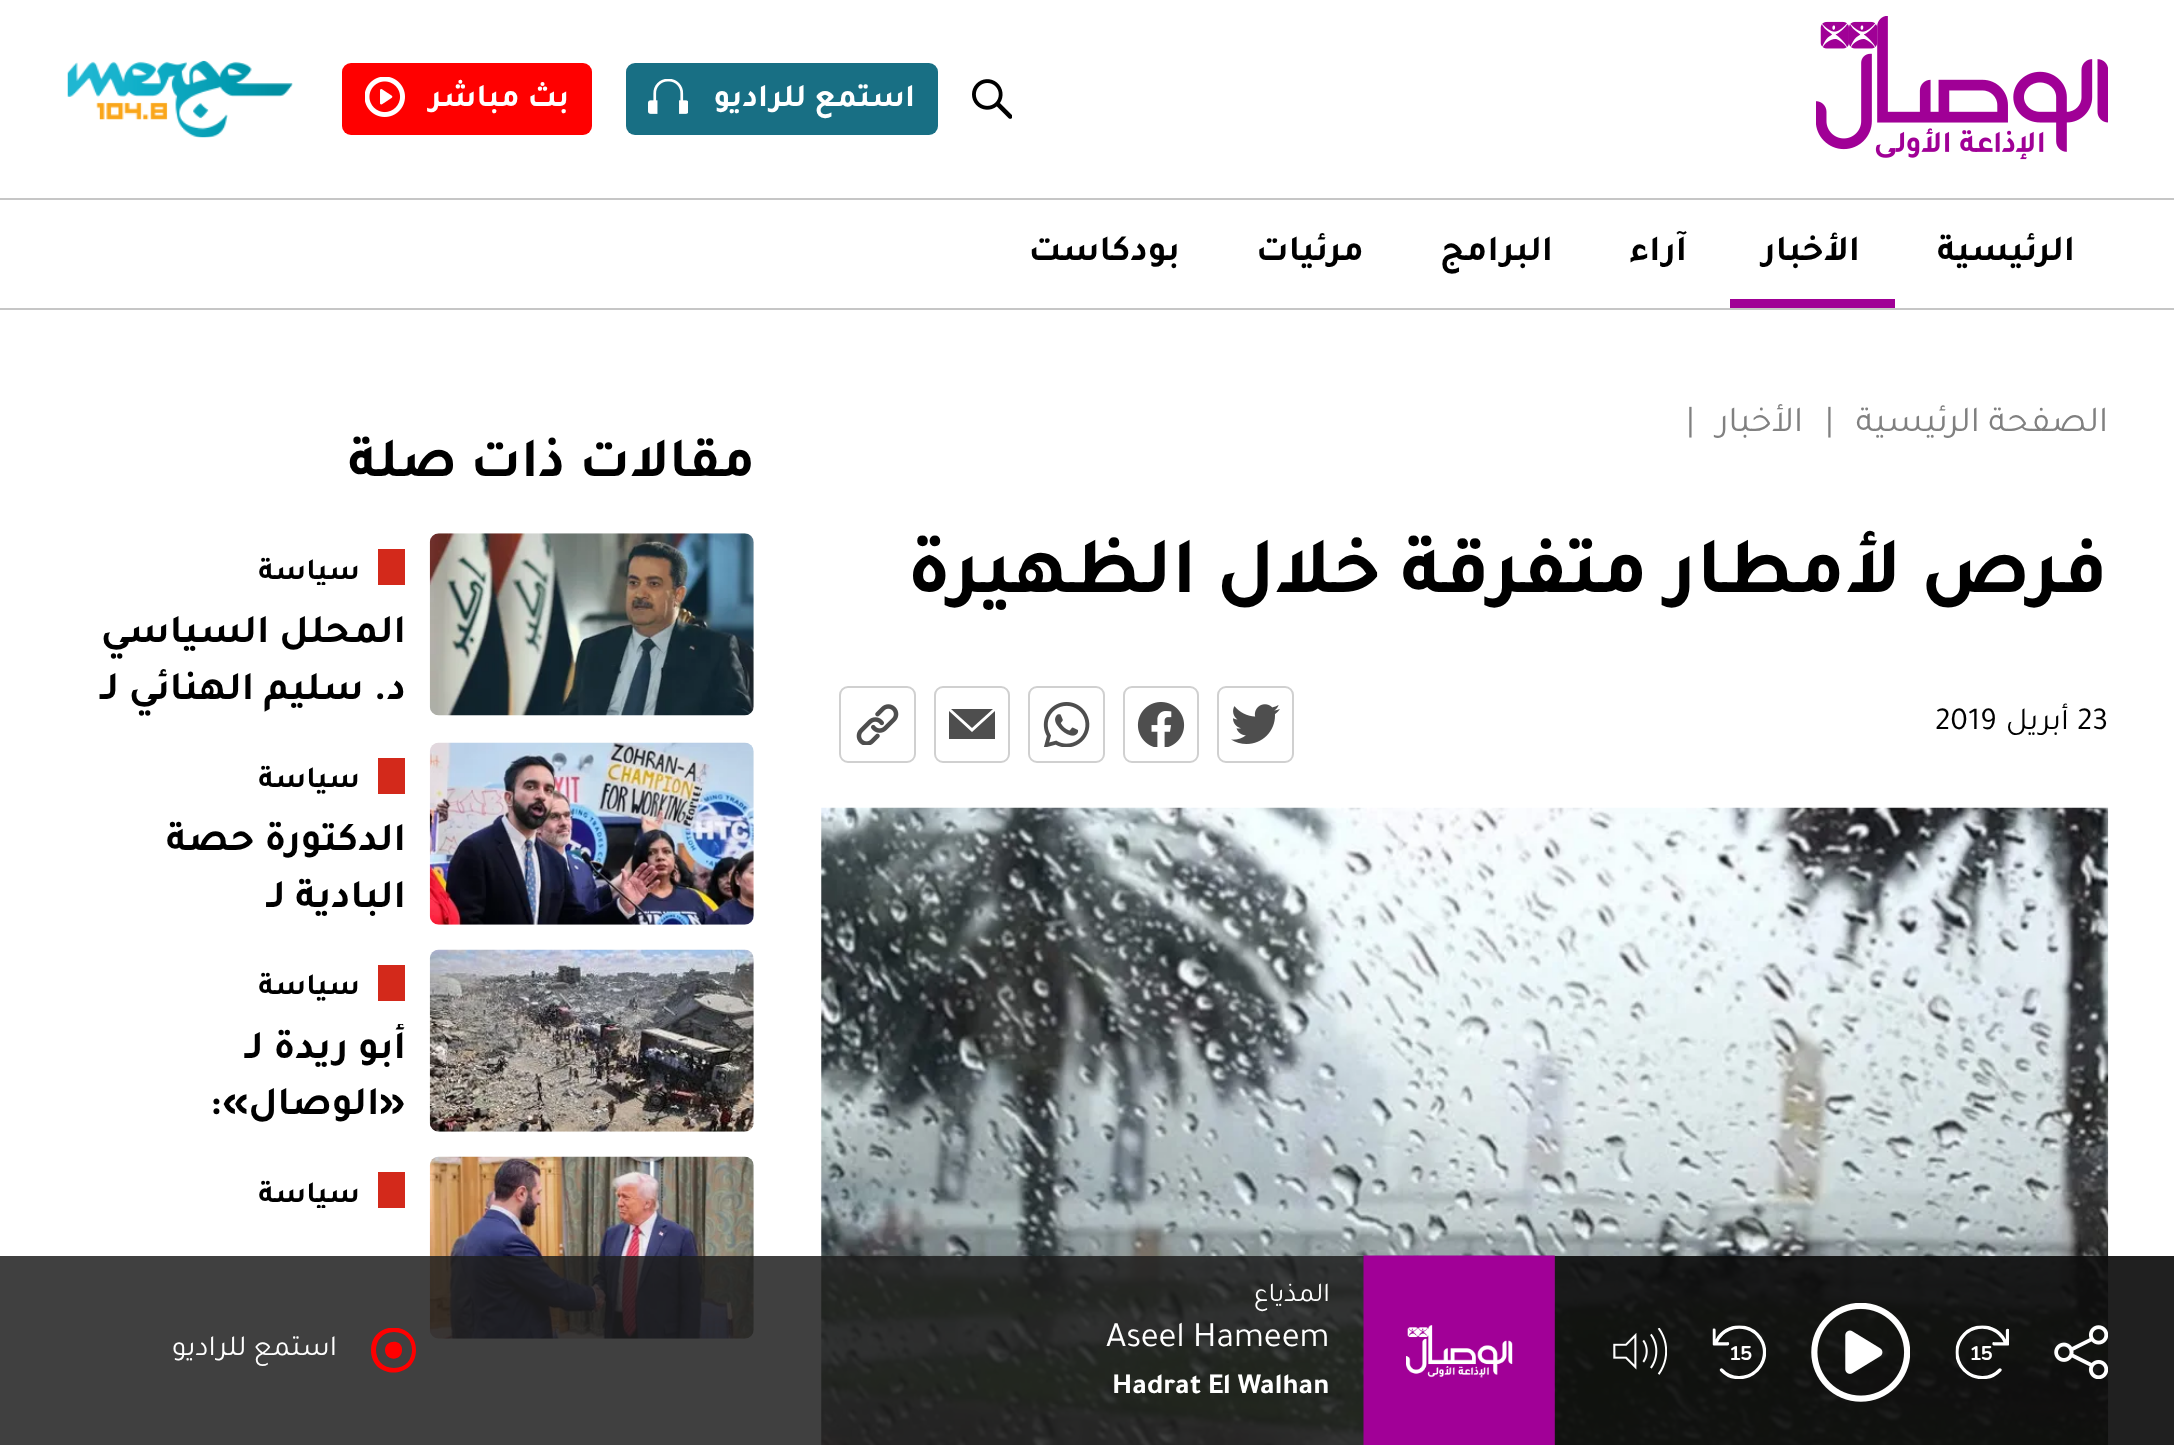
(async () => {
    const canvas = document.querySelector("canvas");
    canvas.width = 2174;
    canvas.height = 1445;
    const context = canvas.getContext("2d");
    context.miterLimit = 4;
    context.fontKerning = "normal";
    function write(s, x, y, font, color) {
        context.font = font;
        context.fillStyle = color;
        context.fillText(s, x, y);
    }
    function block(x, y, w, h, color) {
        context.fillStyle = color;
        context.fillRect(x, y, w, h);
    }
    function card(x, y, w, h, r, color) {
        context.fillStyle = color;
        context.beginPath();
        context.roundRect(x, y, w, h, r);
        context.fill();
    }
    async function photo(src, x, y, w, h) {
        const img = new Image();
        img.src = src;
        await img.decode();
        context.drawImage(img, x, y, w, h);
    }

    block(0, 0, 2174, 1445, "rgb(255, 255, 255)");
    await photo("media/1.png", 1816, 16, 292, 144);
    await photo("media/2.png", 972, 79, 40, 40);
    card(626, 63, 312, 72, 9, "rgb(24, 111, 132)");
    context.direction = "rtl";
    write("استمع للراديو", 915, 106, "bold 32.75px Tajawal", "rgb(255, 255, 255)");
    await photo("media/3.png", 648, 79, 40, 35);
    card(342, 63, 250, 72, 9, "rgb(255, 0, 0)");
    write("بث مباشر", 569, 106, "bold 32.75px Tajawal", "rgb(255, 255, 255)");
    await photo("media/4.png", 365, 77, 40, 40);
    await photo("media/5.png", 67, 60, 226, 78);
    block(0, 198, 2174, 2, "rgb(198, 198, 198)");
    block(0, 308, 2174, 2, "rgb(198, 198, 198)");
    write("الرئيسية", 2075, 260, "bold 36.5px Tajawal", "rgb(0, 0, 0)");
    block(1730, 299, 165, 9, "rgb(160, 0, 150)");
    write("الأخبار", 1860, 260, "bold 36.5px Tajawal", "rgb(0, 0, 0)");
    write("آراء", 1687, 260, "bold 36.5px Tajawal", "rgb(0, 0, 0)");
    write("البرامج", 1553, 260, "bold 36.5px Tajawal", "rgb(0, 0, 0)");
    write("مرئيات", 1364, 260, "bold 36.5px Tajawal", "rgb(0, 0, 0)");
    write("بودكاست", 1180, 260, "bold 36.5px Tajawal", "rgb(0, 0, 0)");
    write("الصفحة الرئيسية", 2108, 431, "36.5px Tajawal", "rgb(128, 128, 128)");
    context.direction = "ltr";
    write("|", 1825, 431, "36.5px Tajawal", "rgb(128, 128, 128)");
    context.direction = "rtl";
    write("الأخبار", 1803, 431, "36.5px Tajawal", "rgb(128, 128, 128)");
    context.direction = "ltr";
    write("|", 1686, 431, "36.5px Tajawal", "rgb(128, 128, 128)");
    context.direction = "rtl";
    write("فرص لأمطار متفرقة خلال الظهيرة", 2108, 592, "bold 81px Tajawal", "rgb(0, 0, 0)");
    context.direction = "ltr";
    write("23", 2077, 729, "32px Tajawal", "rgb(0, 0, 0)");
    context.direction = "rtl";
    write("أبريل", 2069, 729, "32px Tajawal", "rgb(0, 0, 0)");
    context.direction = "ltr";
    write("2019", 1935, 729, "32px Tajawal", "rgb(0, 0, 0)");
    context.beginPath();
    context.roundRect(1218, 687, 75, 75, 8);
    context.strokeStyle = "rgb(208, 208, 208)";
    context.lineWidth = 2;
    context.stroke();
    await photo("media/6.png", 1231, 704, 49, 40);
    context.beginPath();
    context.roundRect(1124, 687, 74, 75, 8);
    context.stroke();
    await photo("media/7.png", 1137, 702, 48, 45);
    context.beginPath();
    context.roundRect(1029, 687, 75, 75, 8);
    context.stroke();
    await photo("media/8.png", 1043, 702, 47, 45);
    context.beginPath();
    context.roundRect(935, 687, 74, 75, 8);
    context.stroke();
    context.fillStyle = "rgb(78, 78, 78)";
    context.beginPath();
    context.moveTo(951, 709);
    context.lineTo(972, 728);
    context.lineTo(993, 709);
    context.closePath();
    context.fill();
    context.beginPath();
    context.moveTo(972, 732);
    context.lineTo(949, 711);
    context.lineTo(949, 739);
    context.lineTo(995, 739);
    context.lineTo(995, 711);
    context.closePath();
    context.fill();
    context.beginPath();
    context.roundRect(840, 687, 75, 75, 8);
    context.stroke();
    await photo("media/9.png", 856, 704, 43, 41);
    await photo("media/10.png", 821, 807, 1288, 638);
    context.direction = "rtl";
    write("مقالات ذات صلة", 755, 476, "bold 56.75px Tajawal", "rgb(0, 0, 0)");
    await photo("media/11.png", 429, 533, 325, 183);
    block(378, 549, 27, 36, "rgb(211, 41, 27)");
    context.save();
    context.beginPath();
    context.rect(79, 533, 326, 52);
    context.clip();
    write("سياسة", 360, 579, "bold 30.5px Tajawal", "rgb(0, 0, 0)");
    context.restore();
    write("المحلل السياسي", 406, 642, "bold 40.5px Tajawal", "rgb(0, 0, 0)");
    write("د. سليم الهنائي لـ", 406, 699, "bold 40.5px Tajawal", "rgb(0, 0, 0)");
    await photo("media/12.png", 429, 742, 325, 183);
    block(378, 758, 27, 36, "rgb(211, 41, 27)");
    write("سياسة", 360, 787, "bold 30.5px Tajawal", "rgb(0, 0, 0)");
    write("الدكتورة حصة", 406, 850, "bold 40.5px Tajawal", "rgb(0, 0, 0)");
    write("البادية لـ", 406, 907, "bold 40.5px Tajawal", "rgb(0, 0, 0)");
    await photo("media/13.png", 429, 949, 325, 183);
    block(378, 965, 27, 36, "rgb(211, 41, 27)");
    write("سياسة", 360, 994, "bold 30.5px Tajawal", "rgb(0, 0, 0)");
    context.save();
    context.beginPath();
    context.rect(79, 1024, 326, 112);
    context.clip();
    write("أبو ريدة لـ", 406, 1058, "bold 40.5px Tajawal", "rgb(0, 0, 0)");
    context.restore();
    write("«الوصال»:", 406, 1114, "bold 40.5px Tajawal", "rgb(0, 0, 0)");
    await photo("media/14.png", 429, 1156, 325, 183);
    block(378, 1172, 27, 36, "rgb(211, 41, 27)");
    context.save();
    context.beginPath();
    context.rect(79, 1157, 326, 51);
    context.clip();
    write("سياسة", 360, 1202, "bold 30.5px Tajawal", "rgb(0, 0, 0)");
    context.restore();
    block(0, 1256, 2174, 189, "rgba(30, 30, 30, 0.85)");
    block(1555, 1256, 619, 189, "rgba(0, 0, 0, 0.5)");
    await photo("media/15.png", 2054, 1325, 54, 54);
    await photo("media/16.png", 1955, 1325, 54, 54);
    await photo("media/17.png", 1811, 1303, 99, 99);
    await photo("media/18.png", 1712, 1325, 54, 54);
    await photo("media/19.png", 1613, 1328, 54, 47);
    await photo("media/20.png", 1363, 1255, 192, 190);
    write("المذياع", 1330, 1301, "27px Tajawal", "rgb(255, 255, 255)");
    context.direction = "ltr";
    write("Aseel Hameem", 1106, 1346, "36px Tajawal", "rgb(255, 255, 255)");
    write("Hadrat El Walhan", 1112, 1393, "bold 29.25px Tajawal", "rgb(255, 255, 255)");
    context.save();
    context.beginPath();
    context.rect(371, 1328, 45, 45);
    context.clip();
    context.fillStyle = "rgb(255, 0, 0)";
    context.beginPath();
    context.moveTo(385, 1350);
    context.bezierCurveTo(385, 1339, 403, 1339, 402, 1350);
    context.bezierCurveTo(402, 1362, 385, 1361, 385, 1350);
    context.closePath();
    context.moveTo(416, 1350);
    context.bezierCurveTo(416, 1380, 371, 1380, 371, 1350);
    context.bezierCurveTo(371, 1320, 416, 1320, 416, 1350);
    context.closePath();
    context.moveTo(394, 1332);
    context.bezierCurveTo(370, 1332, 370, 1368, 394, 1368);
    context.bezierCurveTo(418, 1368, 418, 1332, 394, 1332);
    context.closePath();
    context.fill();
    context.restore();
    context.direction = "rtl";
    write("استمع للراديو", 337, 1355, "29.25px Tajawal", "rgb(255, 255, 255)");
})();
